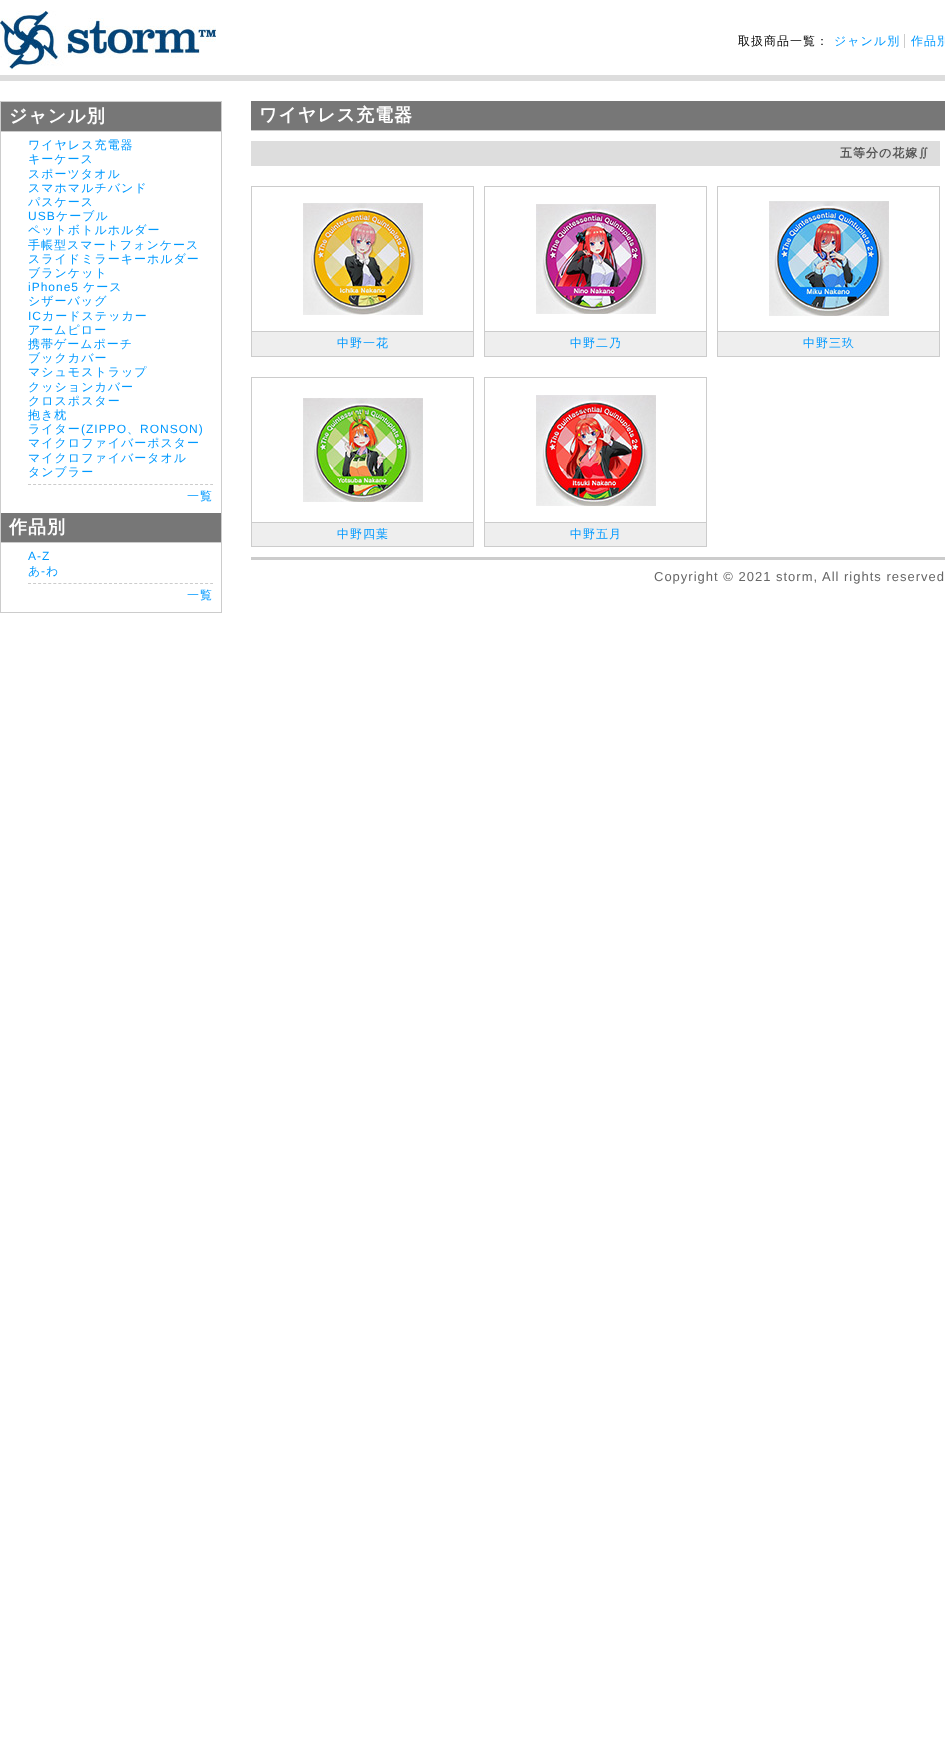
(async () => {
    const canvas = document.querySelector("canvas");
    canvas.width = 945;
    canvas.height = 1757;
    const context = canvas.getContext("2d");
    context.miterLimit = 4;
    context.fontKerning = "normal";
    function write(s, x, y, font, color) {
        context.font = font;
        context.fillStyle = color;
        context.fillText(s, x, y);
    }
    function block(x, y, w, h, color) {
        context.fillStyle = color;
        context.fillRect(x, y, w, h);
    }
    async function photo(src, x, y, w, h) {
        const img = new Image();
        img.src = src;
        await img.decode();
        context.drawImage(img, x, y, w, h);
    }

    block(0, 0, 945, 1757, "rgb(255, 255, 255)");
    block(0, 75, 945, 6, "rgb(221, 221, 221)");
    await photo("media/1.png", 0, 10, 216, 60);
    context.letterSpacing = "1px";
    write("取扱商品一覧：", 738, 45, "500 12px WenQuanYi Zen Hei", "rgb(0, 0, 0)");
    write("ジャンル別", 834, 45, "500 12px WenQuanYi Zen Hei", "rgb(0, 153, 255)");
    write("作品別", 911, 45, "500 12px WenQuanYi Zen Hei", "rgb(0, 153, 255)");
    block(904, 34, 1, 14, "rgb(204, 204, 204)");
    context.strokeStyle = "rgb(204, 204, 204)";
    context.strokeRect(0.5, 101.5, 221, 511);
    block(1, 102, 220, 29, "rgb(119, 119, 119)");
    block(1, 131, 220, 1, "rgb(204, 204, 204)");
    write("ジャンル別", 9, 122, "bold 18px WenQuanYi Zen Hei", "rgb(255, 255, 255)");
    write("ワイヤレス充電器", 28, 149, "500 12px WenQuanYi Zen Hei", "rgb(0, 153, 255)");
    write("キーケース", 28, 163, "500 12px WenQuanYi Zen Hei", "rgb(0, 153, 255)");
    write("スポーツタオル", 28, 178, "500 12px WenQuanYi Zen Hei", "rgb(0, 153, 255)");
    write("スマホマルチバンド", 28, 192, "500 12px WenQuanYi Zen Hei", "rgb(0, 153, 255)");
    write("パスケース", 28, 206, "500 12px WenQuanYi Zen Hei", "rgb(0, 153, 255)");
    write("USB", 28, 220, "12px Liberation Sans", "rgb(0, 153, 255)");
    write("ケーブル", 56, 220, "500 12px WenQuanYi Zen Hei", "rgb(0, 153, 255)");
    write("ペットボトルホルダー", 28, 234, "500 12px WenQuanYi Zen Hei", "rgb(0, 153, 255)");
    write("手帳型スマートフォンケース", 28, 249, "500 12px WenQuanYi Zen Hei", "rgb(0, 153, 255)");
    write("スライドミラーキーホルダー", 28, 263, "500 12px WenQuanYi Zen Hei", "rgb(0, 153, 255)");
    write("ブランケット", 28, 277, "500 12px WenQuanYi Zen Hei", "rgb(0, 153, 255)");
    write("iPhone5", 28, 291, "12px Liberation Sans", "rgb(0, 153, 255)");
    write("ケース", 83, 291, "500 12px WenQuanYi Zen Hei", "rgb(0, 153, 255)");
    write("シザーバッグ", 28, 305, "500 12px WenQuanYi Zen Hei", "rgb(0, 153, 255)");
    write("IC", 28, 320, "12px Liberation Sans", "rgb(0, 153, 255)");
    write("カードステッカー", 42, 320, "500 12px WenQuanYi Zen Hei", "rgb(0, 153, 255)");
    write("アームピロー", 28, 334, "500 12px WenQuanYi Zen Hei", "rgb(0, 153, 255)");
    write("携帯ゲームポーチ", 28, 348, "500 12px WenQuanYi Zen Hei", "rgb(0, 153, 255)");
    write("ブックカバー", 28, 362, "500 12px WenQuanYi Zen Hei", "rgb(0, 153, 255)");
    write("マシュモストラップ", 28, 376, "500 12px WenQuanYi Zen Hei", "rgb(0, 153, 255)");
    write("クッションカバー", 28, 391, "500 12px WenQuanYi Zen Hei", "rgb(0, 153, 255)");
    write("クロスポスター", 28, 405, "500 12px WenQuanYi Zen Hei", "rgb(0, 153, 255)");
    write("抱き枕", 28, 419, "500 12px WenQuanYi Zen Hei", "rgb(0, 153, 255)");
    write("ライター", 28, 433, "500 12px WenQuanYi Zen Hei", "rgb(0, 153, 255)");
    write("(ZIPPO", 81, 433, "12px Liberation Sans", "rgb(0, 153, 255)");
    write("、", 127, 433, "500 12px WenQuanYi Zen Hei", "rgb(0, 153, 255)");
    write("RONSON)", 140, 433, "12px Liberation Sans", "rgb(0, 153, 255)");
    write("マイクロファイバーポスター", 28, 447, "500 12px WenQuanYi Zen Hei", "rgb(0, 153, 255)");
    write("マイクロファイバータオル", 28, 462, "500 12px WenQuanYi Zen Hei", "rgb(0, 153, 255)");
    write("タンブラー", 28, 476, "500 12px WenQuanYi Zen Hei", "rgb(0, 153, 255)");
    context.beginPath();
    context.moveTo(28, 484.5);
    context.lineTo(213, 484.5);
    context.setLineDash([3, 2.06]);
    context.stroke();
    write("一覧", 187, 500, "500 12px WenQuanYi Zen Hei", "rgb(0, 153, 255)");
    block(1, 513, 220, 29, "rgb(119, 119, 119)");
    block(1, 542, 220, 1, "rgb(204, 204, 204)");
    write("作品別", 9, 533, "bold 18px WenQuanYi Zen Hei", "rgb(255, 255, 255)");
    write("A-Z", 28, 560, "12px Liberation Sans", "rgb(0, 153, 255)");
    write("あ", 28, 575, "500 12px WenQuanYi Zen Hei", "rgb(0, 153, 255)");
    write("-", 41, 575, "12px Liberation Sans", "rgb(0, 153, 255)");
    write("わ", 46, 575, "500 12px WenQuanYi Zen Hei", "rgb(0, 153, 255)");
    context.beginPath();
    context.moveTo(28, 583.5);
    context.lineTo(213, 583.5);
    context.stroke();
    write("一覧", 187, 599, "500 12px WenQuanYi Zen Hei", "rgb(0, 153, 255)");
    block(251, 101, 694, 29, "rgb(119, 119, 119)");
    block(251, 130, 694, 1, "rgb(204, 204, 204)");
    write("ワイヤレス充電器", 259, 121, "bold 18px WenQuanYi Zen Hei", "rgb(255, 255, 255)");
    block(251, 141, 689, 25, "rgb(221, 221, 221)");
    write("五等分の花嫁∬", 840, 157, "bold 12px WenQuanYi Zen Hei", "rgb(85, 85, 85)");
    context.setLineDash([]);
    context.strokeRect(251.5, 186.5, 222, 170);
    await photo("media/2.png", 303, 203, 120, 112);
    block(252, 332, 221, 24, "rgb(238, 238, 238)");
    block(252, 331, 221, 1, "rgb(204, 204, 204)");
    write("中野一花", 337, 347, "500 12px WenQuanYi Zen Hei", "rgb(0, 153, 255)");
    context.strokeRect(484.5, 186.5, 222, 170);
    await photo("media/3.png", 536, 204, 120, 110);
    block(485, 332, 221, 24, "rgb(238, 238, 238)");
    block(485, 331, 221, 1, "rgb(204, 204, 204)");
    write("中野二乃", 570, 347, "500 12px WenQuanYi Zen Hei", "rgb(0, 153, 255)");
    context.strokeRect(717.5, 186.5, 222, 170);
    await photo("media/4.png", 769, 201, 120, 115);
    block(718, 332, 221, 24, "rgb(238, 238, 238)");
    block(718, 331, 221, 1, "rgb(204, 204, 204)");
    write("中野三玖", 803, 347, "500 12px WenQuanYi Zen Hei", "rgb(0, 153, 255)");
    context.strokeRect(251.5, 377.5, 222, 169);
    await photo("media/5.png", 303, 398, 120, 104);
    block(252, 523, 221, 23, "rgb(238, 238, 238)");
    block(252, 522, 221, 1, "rgb(204, 204, 204)");
    write("中野四葉", 337, 538, "500 12px WenQuanYi Zen Hei", "rgb(0, 153, 255)");
    context.strokeRect(484.5, 377.5, 222, 169);
    await photo("media/6.png", 536, 395, 120, 112);
    block(485, 523, 221, 23, "rgb(238, 238, 238)");
    block(485, 522, 221, 1, "rgb(204, 204, 204)");
    write("中野五月", 570, 538, "500 12px WenQuanYi Zen Hei", "rgb(0, 153, 255)");
    block(251, 557, 694, 3, "rgb(204, 204, 204)");
    write("Copyright © 2021 storm, All rights reserved", 654, 581, "13px Liberation Sans", "rgb(102, 102, 102)");
})();
